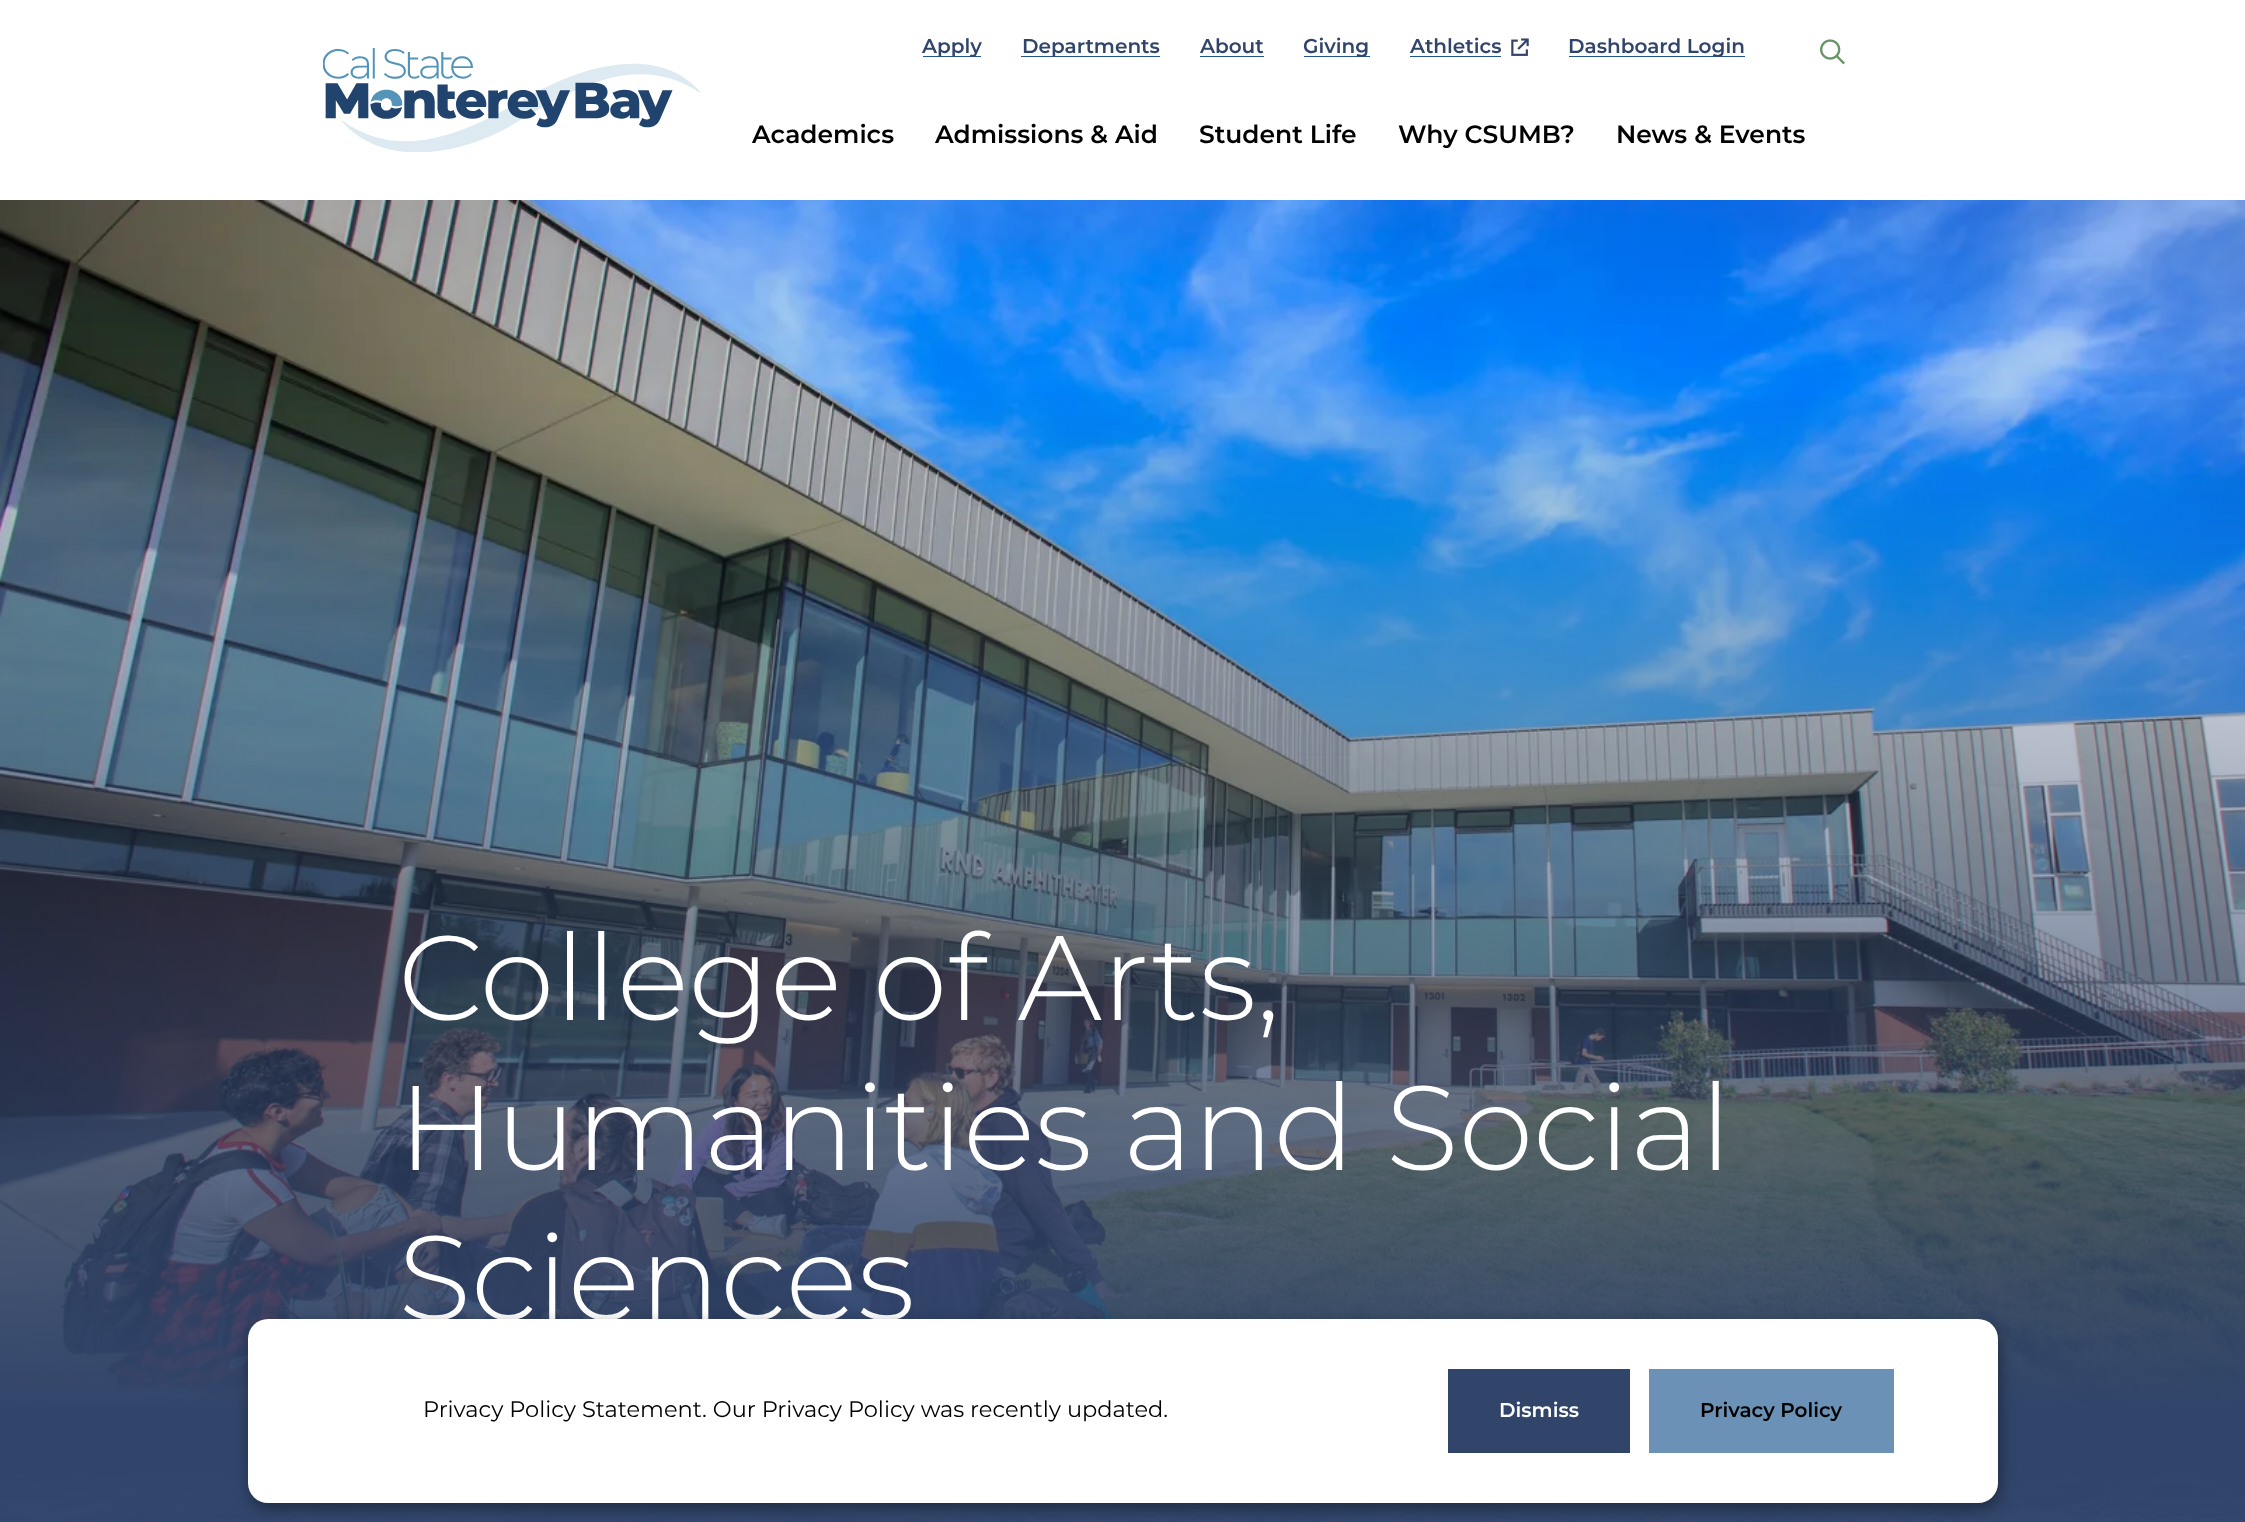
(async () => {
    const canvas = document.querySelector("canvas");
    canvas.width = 2245;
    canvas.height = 1522;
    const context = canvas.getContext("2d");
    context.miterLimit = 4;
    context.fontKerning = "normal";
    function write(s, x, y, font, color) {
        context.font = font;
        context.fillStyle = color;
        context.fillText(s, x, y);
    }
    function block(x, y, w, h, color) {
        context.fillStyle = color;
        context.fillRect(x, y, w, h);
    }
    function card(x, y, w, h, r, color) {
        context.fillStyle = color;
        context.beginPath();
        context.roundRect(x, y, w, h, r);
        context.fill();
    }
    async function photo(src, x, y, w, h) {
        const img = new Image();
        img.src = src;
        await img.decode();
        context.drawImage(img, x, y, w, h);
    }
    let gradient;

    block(0, 0, 2245, 1522, "rgb(255, 255, 255)");
    await photo("media/1.png", 323, 48, 377, 104);
    block(923, 56, 58, 1, "rgb(32, 84, 147)");
    write("Apply", 922, 53, "600 20px Montserrat", "rgb(49, 69, 107)");
    block(1021, 56, 139, 1, "rgb(32, 84, 147)");
    write("Departments", 1022, 53, "600 20px Montserrat", "rgb(49, 69, 107)");
    write("About", 1200, 53, "600 20px Montserrat", "rgb(49, 69, 107)");
    block(1200, 56, 64, 1, "rgb(32, 84, 147)");
    block(1304, 56, 66, 1, "rgb(32, 84, 147)");
    write("Giving", 1303, 53, "600 20px Montserrat", "rgb(49, 69, 107)");
    write("Athletics", 1410, 53, "600 20px Montserrat", "rgb(49, 69, 107)");
    block(1410, 56, 91, 1, "rgb(32, 84, 147)");
    await photo("media/2.png", 1511, 38, 18, 18);
    block(1569, 56, 176, 1, "rgb(32, 84, 147)");
    write("Dashboard Login", 1568, 53, "600 20px Montserrat", "rgb(49, 69, 107)");
    write("Academics", 752, 143, "600 25px Montserrat", "rgb(0, 0, 0)");
    write("Admissions & Aid", 935, 143, "600 25px Montserrat", "rgb(0, 0, 0)");
    write("Student Life", 1199, 143, "600 25px Montserrat", "rgb(0, 0, 0)");
    write("Why CSUMB?", 1398, 143, "600 25px Montserrat", "rgb(0, 0, 0)");
    write("News & Events", 1616, 143, "600 25px Montserrat", "rgb(0, 0, 0)");
    await photo("media/3.png", 1820, 39, 25, 26);
    await photo("media/4.png", 0, 200, 2245, 1207);
    gradient = context.createLinearGradient(1123, 1463, 1122, 200);
    gradient.addColorStop(0.04, "rgb(49, 69, 107)");
    gradient.addColorStop(0.86, "rgba(49, 69, 107, 0)");
    context.fillStyle = gradient;
    context.fillRect(0, 398, 2245, 1065);
    write("College of Arts,", 398, 1020, "300 120px Montserrat", "rgb(255, 255, 255)");
    write("Humanities and Social", 398, 1170, "300 120px Montserrat", "rgb(255, 255, 255)");
    write("Sciences", 398, 1320, "300 120px Montserrat", "rgb(255, 255, 255)");
    await photo("media/5.png", 0, 1463, 2245, 59);
    context.fillStyle = "rgba(0, 0, 0, 0.4)";
    context.filter = "blur(7.5px)";
    context.beginPath();
    context.roundRect(250, 1324, 1750, 184, 20);
    context.fill();
    context.filter = "none";
    card(248, 1319, 1750, 184, 20, "rgb(255, 255, 255)");
    write("Privacy Policy Statement. Our Privacy Policy was recently updated.", 423, 1417, "22.5px Montserrat", "rgb(0, 0, 0)");
    block(1448, 1369, 182, 84, "rgb(49, 69, 107)");
    write("Dismiss", 1499, 1417, "600 20px Montserrat", "rgb(255, 255, 255)");
    block(1649, 1369, 245, 84, "rgb(107, 146, 182)");
    write("Privacy Policy", 1700, 1417, "600 20px Montserrat", "rgb(0, 0, 0)");
})();
